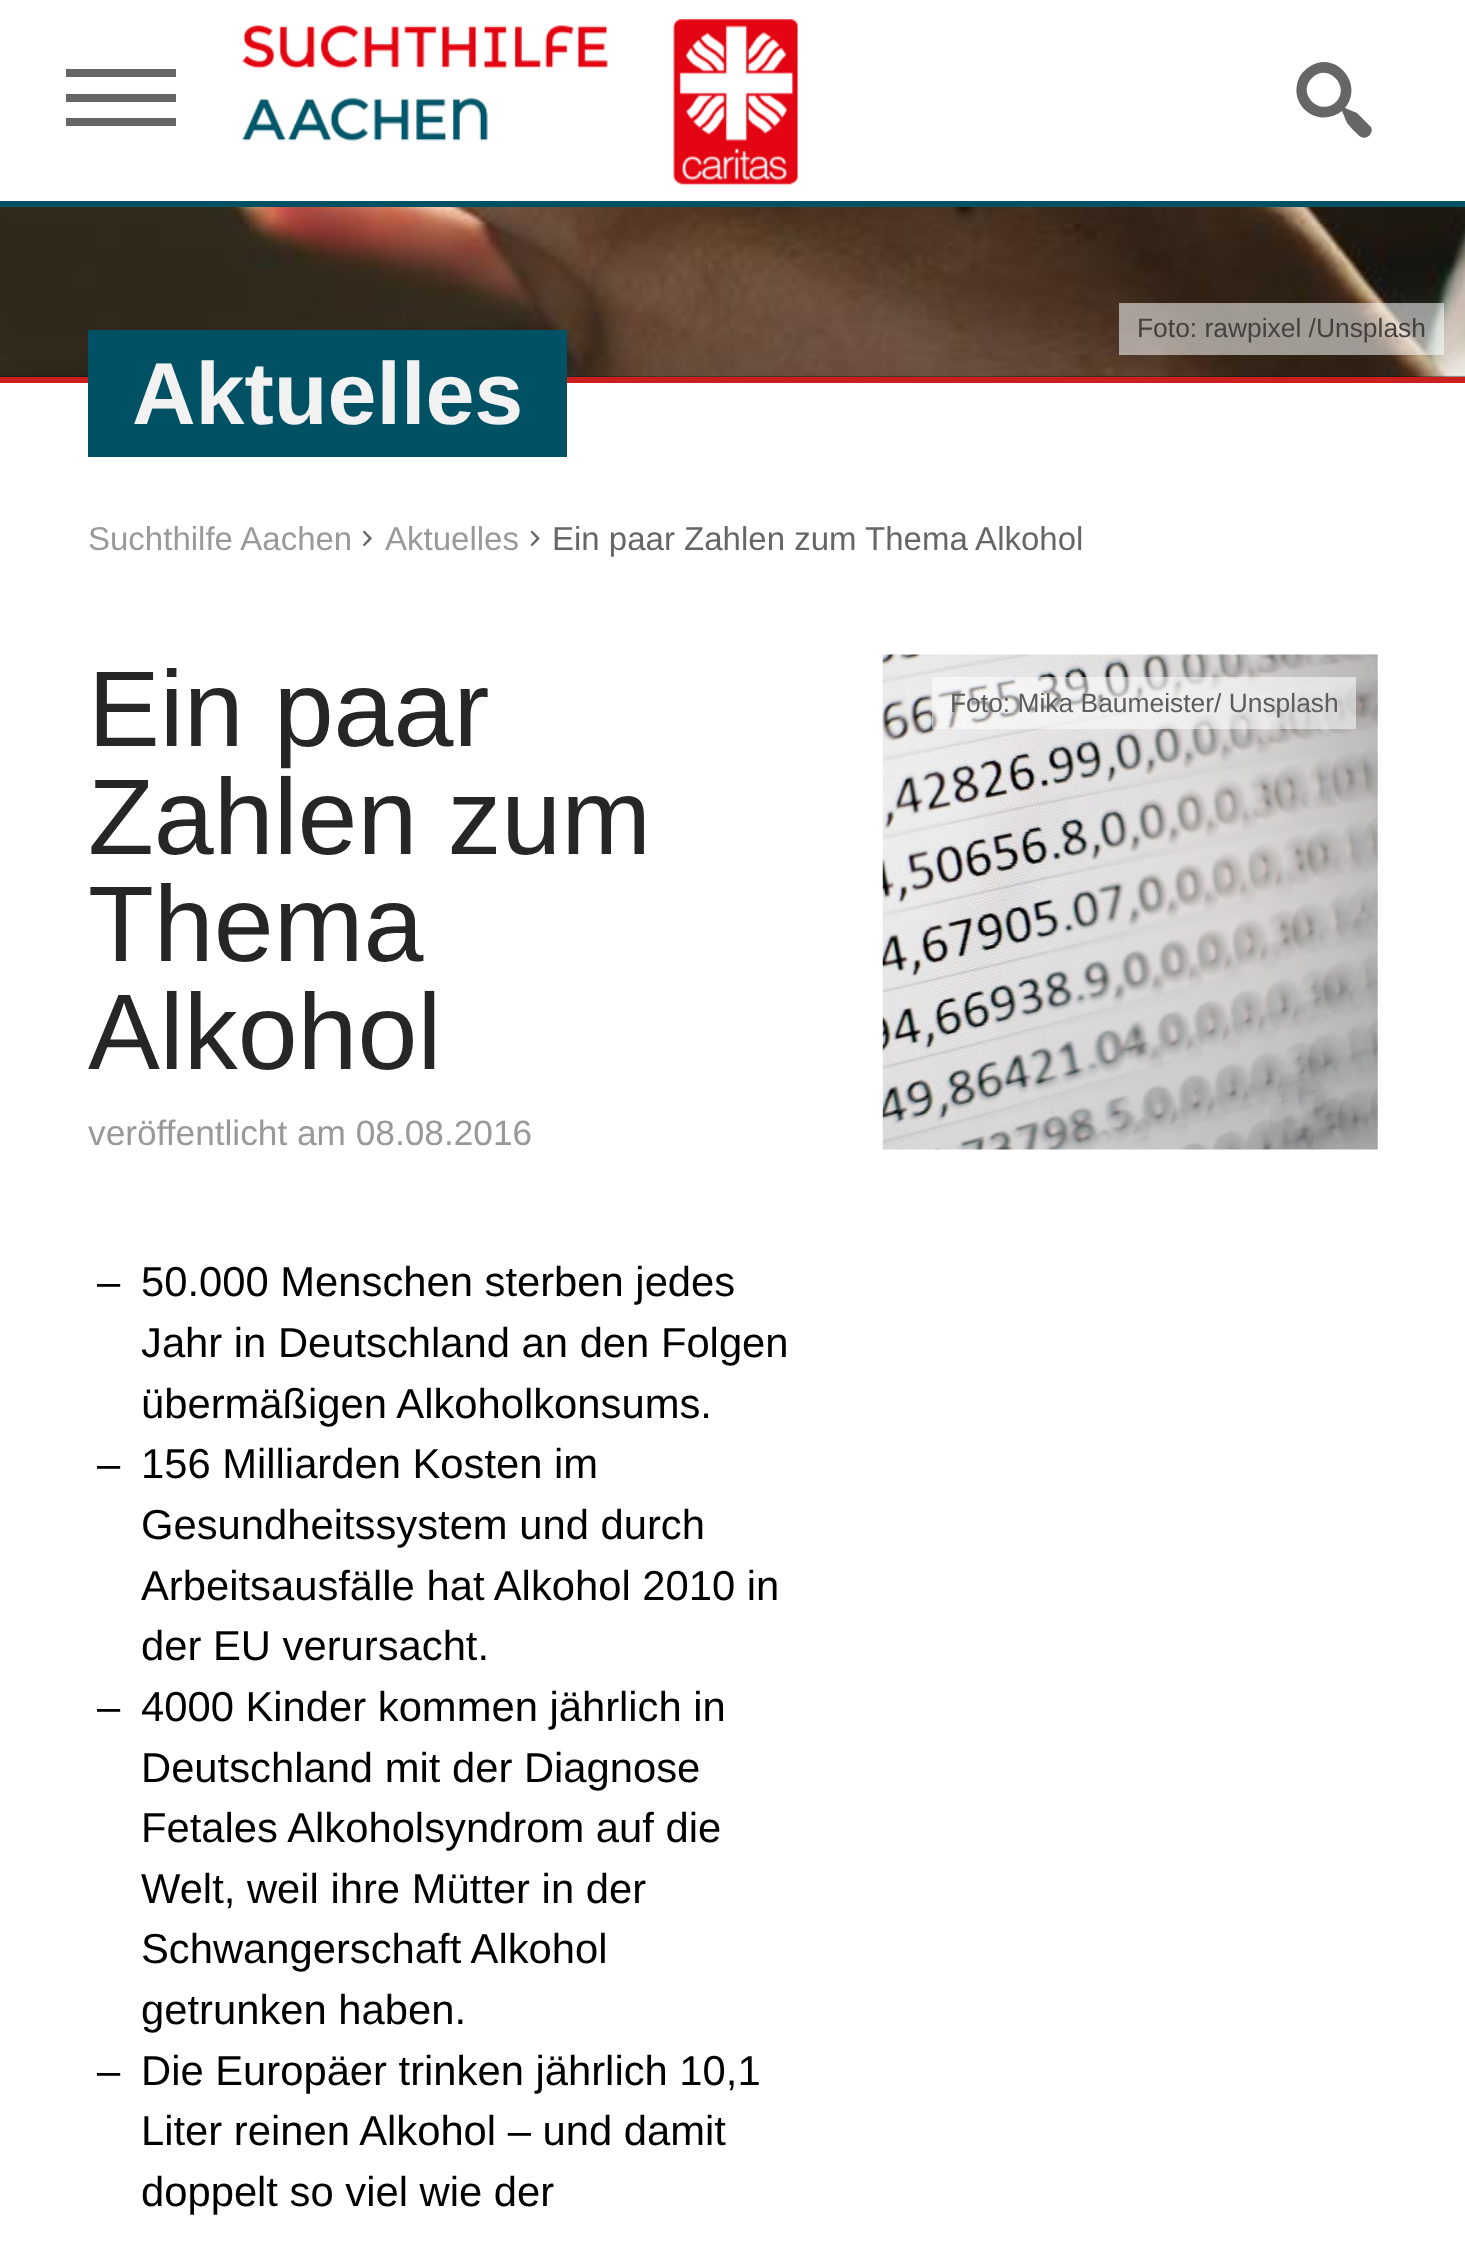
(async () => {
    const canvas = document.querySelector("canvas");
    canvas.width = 1465;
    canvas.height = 2245;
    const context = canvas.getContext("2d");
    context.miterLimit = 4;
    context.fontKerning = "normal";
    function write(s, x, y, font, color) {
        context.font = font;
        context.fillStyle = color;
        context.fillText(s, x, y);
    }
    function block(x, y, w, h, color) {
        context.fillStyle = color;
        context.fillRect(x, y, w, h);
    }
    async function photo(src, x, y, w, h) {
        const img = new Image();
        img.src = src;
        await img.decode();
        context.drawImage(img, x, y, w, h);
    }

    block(0, 0, 1465, 2245, "rgb(255, 255, 255)");
    block(0, 201, 1465, 6, "rgb(0, 81, 100)");
    block(66, 69, 110, 8, "rgb(102, 102, 102)");
    block(66, 94, 110, 8, "rgb(102, 102, 102)");
    block(66, 118, 110, 8, "rgb(102, 102, 102)");
    await photo("media/1.png", 242, 19, 556, 166);
    context.beginPath();
    context.moveTo(1304, 109);
    context.bezierCurveTo(1315, 120, 1331, 120, 1342, 111);
    context.lineTo(1347, 123);
    context.lineTo(1353, 130);
    context.bezierCurveTo(1357, 133, 1361, 140, 1367, 137);
    context.bezierCurveTo(1369, 136, 1370, 135, 1371, 133);
    context.bezierCurveTo(1372, 131, 1372, 129, 1371, 127);
    context.lineTo(1357, 113);
    context.lineTo(1345, 108);
    context.bezierCurveTo(1365, 84, 1335, 49, 1309, 67);
    context.bezierCurveTo(1303, 71, 1298, 77, 1297, 85);
    context.bezierCurveTo(1295, 93, 1298, 103, 1304, 109);
    context.closePath();
    context.moveTo(1336, 102);
    context.bezierCurveTo(1320, 117, 1296, 94, 1312, 78);
    context.bezierCurveTo(1328, 62, 1351, 87, 1336, 102);
    context.closePath();
    context.fill();
    await photo("media/2.png", 0, 207, 1465, 170);
    block(0, 377, 1465, 6, "rgb(204, 30, 28)");
    block(1119, 303, 325, 52, "rgba(255, 255, 255, 0.55)");
    write("Foto: rawpixel /Unsplash", 1137, 337, "26.4px Liberation Sans", "rgb(68, 65, 62)");
    context.fillStyle = "rgb(0, 81, 100)";
    context.beginPath();
    context.moveTo(88, 330);
    context.lineTo(88, 457);
    context.lineTo(479, 457);
    context.lineTo(479, 456);
    context.lineTo(132, 456);
    context.lineTo(132, 330);
    context.closePath();
    context.fill();
    context.beginPath();
    context.moveTo(176, 456);
    context.lineTo(176, 457);
    context.lineTo(567, 457);
    context.lineTo(567, 330);
    context.lineTo(522, 330);
    context.lineTo(522, 456);
    context.closePath();
    context.fill();
    block(132, 330, 390, 126, "rgb(0, 81, 100)");
    write("Aktuelles", 132, 424, "bold 88px Liberation Sans", "rgb(242, 242, 242)");
    write("Suchthilfe Aachen", 88, 550, "33px Liberation Sans", "rgb(153, 153, 153)");
    await photo("media/3.png", 363, 530, 9, 16);
    write("Aktuelles", 385, 550, "33px Liberation Sans", "rgb(153, 153, 153)");
    await photo("media/4.png", 530, 530, 10, 16);
    write("Ein paar Zahlen zum Thema Alkohol", 552, 550, "33px Liberation Sans", "rgb(102, 102, 102)");
    write("Ein paar", 88, 746, "107.75px Liberation Sans", "rgb(38, 38, 38)");
    write("Zahlen zum", 88, 854, "107.75px Liberation Sans", "rgb(38, 38, 38)");
    write("Thema", 88, 961, "107.75px Liberation Sans", "rgb(38, 38, 38)");
    write("Alkohol", 88, 1069, "107.75px Liberation Sans", "rgb(38, 38, 38)");
    write("veröffentlicht am 08.08.2016", 88, 1145, "35.25px Liberation Sans", "rgb(153, 153, 153)");
    write("–", 97, 1296, "41.75px Liberation Sans", "rgb(0, 0, 0)");
    write("50.000 Menschen sterben jedes", 141, 1296, "41.75px Liberation Sans", "rgb(0, 0, 0)");
    write("Jahr in Deutschland an den Folgen", 141, 1357, "41.75px Liberation Sans", "rgb(0, 0, 0)");
    write("übermäßigen Alkoholkonsums.", 141, 1418, "41.75px Liberation Sans", "rgb(0, 0, 0)");
    write("–", 97, 1478, "41.75px Liberation Sans", "rgb(0, 0, 0)");
    write("156 Milliarden Kosten im", 141, 1478, "41.75px Liberation Sans", "rgb(0, 0, 0)");
    write("Gesundheitssystem und durch", 141, 1539, "41.75px Liberation Sans", "rgb(0, 0, 0)");
    write("Arbeitsausfälle hat Alkohol 2010 in", 141, 1600, "41.75px Liberation Sans", "rgb(0, 0, 0)");
    write("der EU verursacht.", 141, 1660, "41.75px Liberation Sans", "rgb(0, 0, 0)");
    write("–", 97, 1721, "41.75px Liberation Sans", "rgb(0, 0, 0)");
    write("4000 Kinder kommen jährlich in", 141, 1721, "41.75px Liberation Sans", "rgb(0, 0, 0)");
    write("Deutschland mit der Diagnose", 141, 1782, "41.75px Liberation Sans", "rgb(0, 0, 0)");
    write("Fetales Alkoholsyndrom auf die", 141, 1842, "41.75px Liberation Sans", "rgb(0, 0, 0)");
    write("Welt, weil ihre Mütter in der", 141, 1903, "41.75px Liberation Sans", "rgb(0, 0, 0)");
    write("Schwangerschaft Alkohol", 141, 1963, "41.75px Liberation Sans", "rgb(0, 0, 0)");
    write("getrunken haben.", 141, 2024, "41.75px Liberation Sans", "rgb(0, 0, 0)");
    write("–", 97, 2085, "41.75px Liberation Sans", "rgb(0, 0, 0)");
    write("Die Europäer trinken jährlich 10,1", 141, 2085, "41.75px Liberation Sans", "rgb(0, 0, 0)");
    write("Liter reinen Alkohol – und damit", 141, 2145, "41.75px Liberation Sans", "rgb(0, 0, 0)");
    write("doppelt so viel wie der", 141, 2206, "41.75px Liberation Sans", "rgb(0, 0, 0)");
    await photo("media/5.png", 882, 654, 496, 496);
    block(932, 677, 424, 52, "rgba(255, 255, 255, 0.55)");
    write("Foto: Mika Baumeister/ Unsplash", 950, 712, "26.4px Liberation Sans", "rgb(92, 92, 92)");
})();
